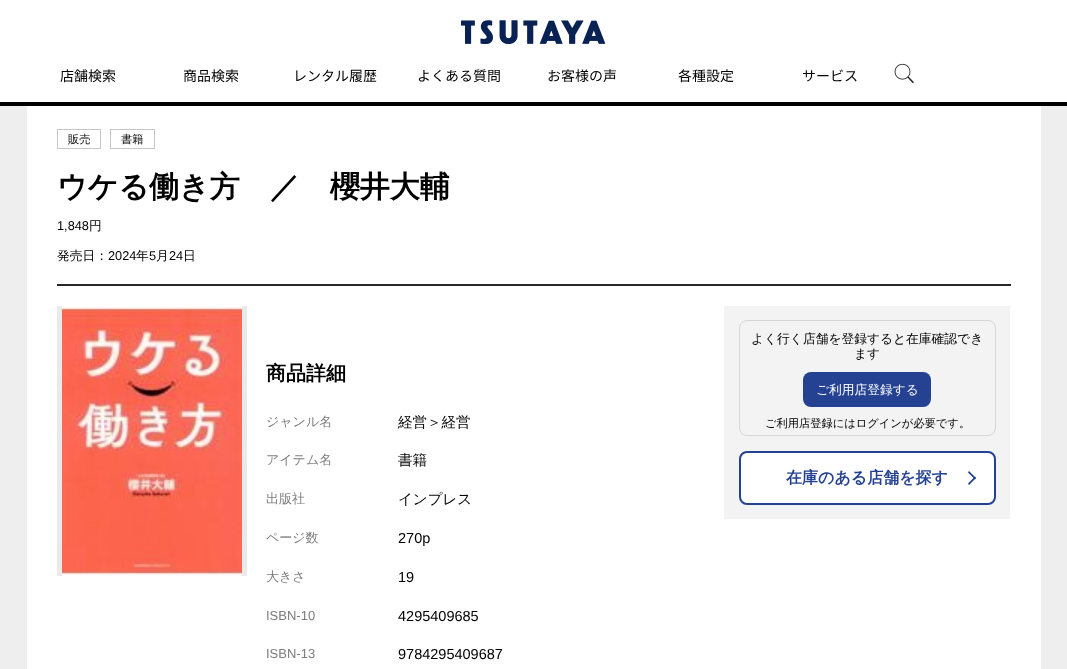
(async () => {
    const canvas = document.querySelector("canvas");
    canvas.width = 1067;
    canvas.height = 669;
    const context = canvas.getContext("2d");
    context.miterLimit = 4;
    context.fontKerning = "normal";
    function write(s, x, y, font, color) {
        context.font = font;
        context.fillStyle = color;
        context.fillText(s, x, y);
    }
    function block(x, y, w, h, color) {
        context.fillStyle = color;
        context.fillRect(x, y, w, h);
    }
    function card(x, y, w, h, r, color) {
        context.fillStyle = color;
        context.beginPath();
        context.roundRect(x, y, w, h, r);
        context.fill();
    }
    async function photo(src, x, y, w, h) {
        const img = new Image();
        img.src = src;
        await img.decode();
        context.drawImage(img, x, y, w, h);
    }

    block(0, 0, 1067, 669, "rgb(255, 255, 255)");
    block(0, 106, 1067, 563, "rgb(238, 238, 238)");
    await photo("media/1.png", 461, 20, 145, 24);
    block(0, 102, 1067, 4, "rgb(0, 0, 0)");
    write("店舗検索", 60, 81, "14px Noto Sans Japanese", "rgb(0, 0, 0)");
    write("商品検索", 183, 81, "14px Noto Sans Japanese", "rgb(0, 0, 0)");
    write("レンタル履歴", 293, 81, "14px Noto Sans Japanese", "rgb(0, 0, 0)");
    write("よくある質問", 417, 81, "14px Noto Sans Japanese", "rgb(0, 0, 0)");
    write("お客様の声", 547, 81, "14px Noto Sans Japanese", "rgb(0, 0, 0)");
    write("各種設定", 678, 81, "14px Noto Sans Japanese", "rgb(0, 0, 0)");
    write("サービス", 802, 81, "14px Noto Sans Japanese", "rgb(0, 0, 0)");
    await photo("media/2.png", 894, 63, 20, 21);
    block(27, 106, 1014, 563, "rgb(255, 255, 255)");
    context.strokeStyle = "rgb(198, 198, 198)";
    context.strokeRect(57.5, 129.5, 43, 19);
    write("販売", 68, 143, "500 11.25px WenQuanYi Zen Hei", "rgb(0, 0, 0)");
    context.strokeRect(110.5, 129.5, 44, 19);
    write("書籍", 121, 143, "500 11.25px WenQuanYi Zen Hei", "rgb(0, 0, 0)");
    write("ウケる働き方　／　櫻井大輔", 57, 197, "bold 30px WenQuanYi Zen Hei", "rgb(0, 0, 0)");
    write("1,848", 57, 230, "12.75px Liberation Sans", "rgb(0, 0, 0)");
    write("円", 89, 230, "500 12.75px WenQuanYi Zen Hei", "rgb(0, 0, 0)");
    write("発売日：", 57, 260, "500 12.75px WenQuanYi Zen Hei", "rgb(0, 0, 0)");
    write("2024", 108, 260, "12.75px Liberation Sans", "rgb(0, 0, 0)");
    write("年", 136, 260, "500 12.75px WenQuanYi Zen Hei", "rgb(0, 0, 0)");
    write("5", 149, 260, "12.75px Liberation Sans", "rgb(0, 0, 0)");
    write("月", 156, 260, "500 12.75px WenQuanYi Zen Hei", "rgb(0, 0, 0)");
    write("24", 169, 260, "12.75px Liberation Sans", "rgb(0, 0, 0)");
    write("日", 183, 260, "500 12.75px WenQuanYi Zen Hei", "rgb(0, 0, 0)");
    block(57, 284, 954, 2, "rgb(39, 39, 39)");
    block(57, 306, 190, 270, "rgb(234, 234, 234)");
    await photo("media/3.png", 62, 306, 180, 270);
    write("商品詳細", 266, 380, "bold 20px WenQuanYi Zen Hei", "rgb(0, 0, 0)");
    write("ジャンル名", 266, 426, "500 13px WenQuanYi Zen Hei", "rgb(125, 125, 125)");
    write("経営＞経営", 398, 427, "500 14.5px WenQuanYi Zen Hei", "rgb(0, 0, 0)");
    write("アイテム名", 266, 464, "500 13px WenQuanYi Zen Hei", "rgb(125, 125, 125)");
    write("書籍", 398, 465, "500 14.5px WenQuanYi Zen Hei", "rgb(0, 0, 0)");
    write("出版社", 266, 503, "500 13px WenQuanYi Zen Hei", "rgb(125, 125, 125)");
    write("インプレス", 398, 504, "500 14.5px WenQuanYi Zen Hei", "rgb(0, 0, 0)");
    write("ページ数", 266, 542, "500 13px WenQuanYi Zen Hei", "rgb(125, 125, 125)");
    write("270p", 398, 543, "14.5px Liberation Sans", "rgb(0, 0, 0)");
    write("大きさ", 266, 581, "500 13px WenQuanYi Zen Hei", "rgb(125, 125, 125)");
    write("19", 398, 582, "14.5px Liberation Sans", "rgb(0, 0, 0)");
    write("ISBN-10", 266, 620, "13px Liberation Sans", "rgb(125, 125, 125)");
    write("4295409685", 398, 621, "14.5px Liberation Sans", "rgb(0, 0, 0)");
    write("ISBN-13", 266, 658, "13px Liberation Sans", "rgb(125, 125, 125)");
    write("9784295409687", 398, 659, "14.5px Liberation Sans", "rgb(0, 0, 0)");
    block(724, 306, 286, 213, "rgb(243, 243, 243)");
    context.beginPath();
    context.roundRect(739.5, 320.5, 256, 115, 7.5);
    context.strokeStyle = "rgb(215, 215, 215)";
    context.stroke();
    write("よく行く店舗を登録すると在庫確認でき", 751, 343, "500 12.75px WenQuanYi Zen Hei", "rgb(0, 0, 0)");
    write("ます", 854, 358, "500 12.75px WenQuanYi Zen Hei", "rgb(0, 0, 0)");
    card(803, 372, 128, 35, 8, "rgb(37, 66, 146)");
    write("ご利用店登録する", 816, 394, "500 12.75px WenQuanYi Zen Hei", "rgb(255, 255, 255)");
    write("ご利用店登録にはログインが必要です。", 765, 427, "500 11.25px WenQuanYi Zen Hei", "rgb(0, 0, 0)");
    context.fillStyle = "rgb(255, 255, 255)";
    context.beginPath();
    context.roundRect(740, 452, 255, 52, 7);
    context.fill();
    context.strokeStyle = "rgb(37, 66, 146)";
    context.lineWidth = 2;
    context.stroke();
    write("在庫のある店舗を探す", 786, 483, "bold 16px WenQuanYi Zen Hei", "rgb(37, 66, 146)");
    context.beginPath();
    context.moveTo(969, 471);
    context.lineTo(976, 478);
    context.lineTo(975, 479.5);
    context.lineTo(968, 472.5);
    context.closePath();
    context.fill();
    context.beginPath();
    context.moveTo(975, 476.5);
    context.lineTo(976, 478);
    context.lineTo(969, 485);
    context.lineTo(968, 483.5);
    context.closePath();
    context.fill();
})();
